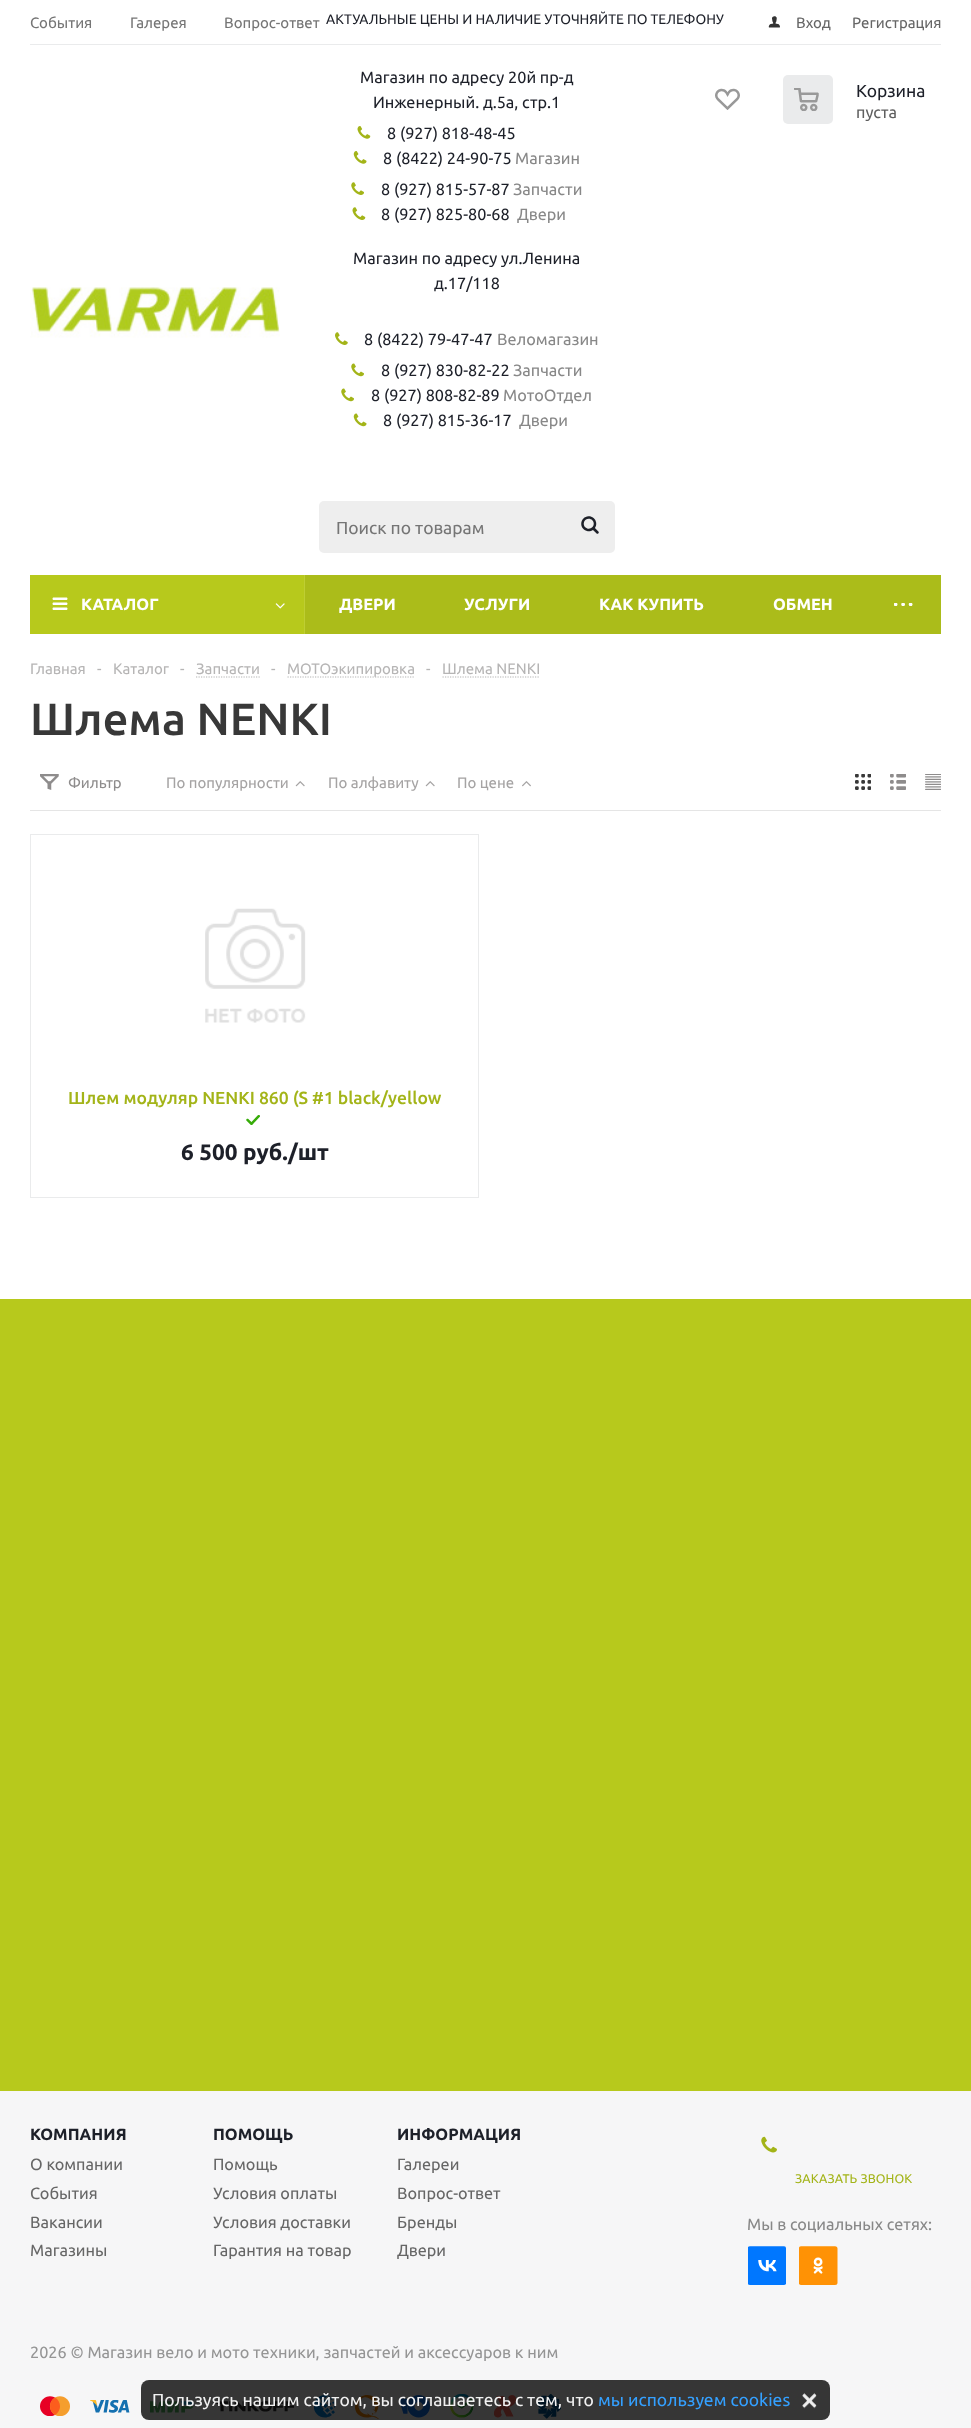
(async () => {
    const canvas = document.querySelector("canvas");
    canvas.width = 971;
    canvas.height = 2428;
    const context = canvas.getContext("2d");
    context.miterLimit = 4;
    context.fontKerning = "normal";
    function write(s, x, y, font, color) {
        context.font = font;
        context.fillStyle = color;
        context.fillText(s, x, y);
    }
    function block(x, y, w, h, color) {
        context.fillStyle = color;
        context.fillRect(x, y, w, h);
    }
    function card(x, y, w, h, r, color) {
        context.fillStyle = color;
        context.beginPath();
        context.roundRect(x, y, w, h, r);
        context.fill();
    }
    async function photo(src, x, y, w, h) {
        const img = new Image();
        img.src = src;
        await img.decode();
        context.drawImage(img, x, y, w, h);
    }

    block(0, 0, 971, 2428, "rgb(183, 201, 28)");
    block(0, 0, 971, 1299, "rgb(255, 255, 255)");
    write("События", 30, 28, "15px Ubuntu", "rgb(117, 117, 117)");
    write("Галерея", 130, 28, "15px Ubuntu", "rgb(117, 117, 117)");
    write("Вопрос-ответ", 224, 28, "15px Ubuntu", "rgb(117, 117, 117)");
    write("АКТУАЛЬНЫЕ ЦЕНЫ И НАЛИЧИЕ УТОЧНЯЙТЕ ПО ТЕЛЕФОНУ", 326, 24, "13.8px Ubuntu", "rgb(29, 32, 41)");
    await photo("media/1.png", 768, 16, 12, 12);
    write("Вход", 796, 28, "15px Ubuntu", "rgb(102, 102, 102)");
    write("Регистрация", 852, 28, "15px Ubuntu", "rgb(102, 102, 102)");
    block(30, 44, 911, 1, "rgb(234, 235, 236)");
    write("Магазин по адресу 20й пр-д", 360, 83, "16.25px Ubuntu", "rgb(29, 32, 41)");
    write("Инженерный. д.5а, стр.1", 373, 108, "16.25px Ubuntu", "rgb(29, 32, 41)");
    await photo("media/2.png", 357, 126, 14, 13);
    write("8 (927) 818-48-45", 387, 139, "16.25px Ubuntu", "rgb(29, 32, 41)");
    await photo("media/3.png", 353, 151, 14, 13);
    write("8 (8422) 24-90-75", 383, 164, "16.25px Ubuntu", "rgb(29, 32, 41)");
    write("Магазин", 515, 164, "16.25px Ubuntu", "rgb(136, 136, 136)");
    await photo("media/4.png", 351, 182, 13, 13);
    write("8 (927) 815-57-87", 381, 195, "16.25px Ubuntu", "rgb(29, 32, 41)");
    write("Запчасти", 513, 195, "16.25px Ubuntu", "rgb(136, 136, 136)");
    await photo("media/5.png", 352, 207, 14, 13);
    write("8 (927) 825-80-68", 381, 220, "16.25px Ubuntu", "rgb(29, 32, 41)");
    write("Двери", 517, 220, "16.25px Ubuntu", "rgb(136, 136, 136)");
    write("Магазин по адресу ул.Ленина", 353, 264, "16.25px Ubuntu", "rgb(29, 32, 41)");
    write("д.17/118", 434, 289, "16.25px Ubuntu", "rgb(29, 32, 41)");
    await photo("media/6.png", 335, 332, 13, 13);
    write("8 (8422) 79-47-47", 364, 345, "16.25px Ubuntu", "rgb(29, 32, 41)");
    write("Веломагазин", 497, 345, "16.25px Ubuntu", "rgb(136, 136, 136)");
    await photo("media/7.png", 351, 363, 13, 14);
    write("8 (927) 830-82-22", 381, 376, "16.25px Ubuntu", "rgb(29, 32, 41)");
    write("Запчасти", 513, 376, "16.25px Ubuntu", "rgb(136, 136, 136)");
    await photo("media/7.png", 341, 388, 13, 14);
    write("8 (927) 808-82-89", 371, 401, "16.25px Ubuntu", "rgb(29, 32, 41)");
    write("МотоОтдел", 503, 401, "16.25px Ubuntu", "rgb(136, 136, 136)");
    await photo("media/8.png", 353, 413, 14, 14);
    write("8 (927) 815-36-17", 383, 426, "16.25px Ubuntu", "rgb(29, 32, 41)");
    write("Двери", 519, 426, "16.25px Ubuntu", "rgb(136, 136, 136)");
    card(319, 501, 296, 52, 5, "rgb(238, 238, 238)");
    write("Поиск по товарам", 336, 534, "17.5px Ubuntu", "rgb(117, 117, 117)");
    await photo("media/9.png", 581, 516, 18, 18);
    await photo("media/10.png", 715, 88, 25, 22);
    card(783, 75, 50, 49, 5, "rgb(234, 235, 236)");
    await photo("media/11.png", 794, 88, 25, 23);
    write("Корзина", 856, 97, "17.5px Ubuntu", "rgb(29, 32, 41)");
    write("пуста", 856, 118, "16.25px Ubuntu", "rgb(95, 95, 95)");
    await photo("media/12.png", 30, 287, 250, 51);
    block(305, 575, 636, 59, "rgb(171, 188, 26)");
    block(30, 575, 274, 59, "rgb(183, 201, 28)");
    await photo("media/13.png", 52, 597, 16, 13);
    write("КАТАЛОГ", 81, 610, "bold 16.25px Ubuntu", "rgb(255, 255, 255)");
    block(304, 575, 1, 59, "rgb(190, 206, 51)");
    await photo("media/14.png", 275, 603, 10, 6);
    write("ДВЕРИ", 339, 610, "bold 16.25px Ubuntu", "rgb(255, 255, 255)");
    write("УСЛУГИ", 464, 610, "bold 16.25px Ubuntu", "rgb(255, 255, 255)");
    write("КАК КУПИТЬ", 599, 610, "bold 16.25px Ubuntu", "rgb(255, 255, 255)");
    write("ОБМЕН", 773, 610, "bold 16.25px Ubuntu", "rgb(255, 255, 255)");
    await photo("media/15.png", 894, 603, 19, 3);
    write("Главная", 30, 674, "15px Ubuntu", "rgb(182, 181, 181)");
    write("-", 97, 674, "15px Ubuntu", "rgb(182, 181, 181)");
    write("Каталог", 113, 674, "15px Ubuntu", "rgb(182, 181, 181)");
    write("-", 180, 674, "15px Ubuntu", "rgb(182, 181, 181)");
    write("Запчасти", 196, 674, "15px Ubuntu", "rgb(182, 181, 181)");
    context.beginPath();
    context.moveTo(196, 677);
    context.lineTo(260, 677);
    context.strokeStyle = "rgb(180, 180, 180)";
    context.lineWidth = 1.2;
    context.setLineDash([1.25, 1.25]);
    context.stroke();
    write("-", 271, 674, "15px Ubuntu", "rgb(182, 181, 181)");
    context.beginPath();
    context.moveTo(287.5, 677);
    context.lineTo(415, 677);
    context.stroke();
    write("МОТОэкипировка", 287, 674, "15px Ubuntu", "rgb(182, 181, 181)");
    write("-", 426, 674, "15px Ubuntu", "rgb(182, 181, 181)");
    write("Шлема NENKI", 442, 674, "15px Ubuntu", "rgb(182, 181, 181)");
    context.beginPath();
    context.moveTo(442.5, 677);
    context.lineTo(540, 677);
    context.stroke();
    write("Шлема NENKI", 30, 735, "500 45px Ubuntu", "rgb(56, 56, 56)");
    await photo("media/16.png", 40, 774, 19, 16);
    write("Фильтр", 68, 788, "15px Ubuntu", "rgb(142, 140, 140)");
    block(30, 810, 911, 1, "rgb(229, 229, 229)");
    write("По популярности", 166, 788, "15px Ubuntu", "rgb(165, 163, 163)");
    await photo("media/17.png", 295, 781, 10, 6);
    write("По алфавиту", 328, 788, "15px Ubuntu", "rgb(165, 163, 163)");
    await photo("media/17.png", 425, 781, 10, 6);
    write("По цене", 457, 788, "15px Ubuntu", "rgb(165, 163, 163)");
    await photo("media/18.png", 522, 781, 9, 6);
    await photo("media/19.png", 855, 774, 16, 16);
    await photo("media/20.png", 890, 774, 16, 16);
    await photo("media/21.png", 925, 774, 16, 16);
    context.strokeStyle = "rgb(234, 235, 236)";
    context.lineWidth = 1;
    context.setLineDash([]);
    context.strokeRect(30.5, 834.5, 448, 363);
    await photo("media/22.png", 205, 908, 101, 115);
    write("Шлем модуляр NENKI 860 (S #1 black/yellow", 68, 1104, "500 17.5px Ubuntu", "rgb(163, 180, 24)");
    await photo("media/23.png", 246, 1115, 14, 10);
    write("6 500 руб./шт", 181, 1160, "bold 22.5px Ubuntu", "rgb(29, 32, 41)");
    block(0, 2091, 971, 337, "rgb(246, 246, 247)");
    write("КОМПАНИЯ", 30, 2140, "bold 16.25px Ubuntu", "rgb(29, 32, 41)");
    write("ПОМОЩЬ", 213, 2140, "bold 16.25px Ubuntu", "rgb(29, 32, 41)");
    write("ИНФОРМАЦИЯ", 397, 2140, "bold 16.25px Ubuntu", "rgb(29, 32, 41)");
    write("О компании", 30, 2170, "16.25px Ubuntu", "rgb(102, 102, 102)");
    write("События", 30, 2199, "16.25px Ubuntu", "rgb(102, 102, 102)");
    write("Вакансии", 30, 2228, "16.25px Ubuntu", "rgb(102, 102, 102)");
    write("Магазины", 30, 2256, "16.25px Ubuntu", "rgb(102, 102, 102)");
    write("Помощь", 213, 2170, "16.25px Ubuntu", "rgb(102, 102, 102)");
    write("Условия оплаты", 213, 2199, "16.25px Ubuntu", "rgb(102, 102, 102)");
    write("Условия доставки", 213, 2228, "16.25px Ubuntu", "rgb(102, 102, 102)");
    write("Гарантия на товар", 213, 2256, "16.25px Ubuntu", "rgb(102, 102, 102)");
    write("Галереи", 397, 2170, "16.25px Ubuntu", "rgb(102, 102, 102)");
    write("Вопрос-ответ", 397, 2199, "16.25px Ubuntu", "rgb(102, 102, 102)");
    write("Бренды", 397, 2228, "16.25px Ubuntu", "rgb(102, 102, 102)");
    write("Двери", 397, 2256, "16.25px Ubuntu", "rgb(102, 102, 102)");
    await photo("media/24.png", 761, 2136, 16, 17);
    context.letterSpacing = "0.1px";
    write("ЗАКАЗАТЬ ЗВОНОК", 795, 2183, "12.5px Ubuntu", "rgb(163, 180, 24)");
    context.letterSpacing = "0px";
    write("Мы в социальных сетях:", 747, 2230, "16.25px Ubuntu", "rgb(136, 136, 136)");
    await photo("media/25.png", 748, 2246, 38, 39);
    await photo("media/26.png", 799, 2246, 39, 39);
    write("2026 © Магазин вело и мото техники, запчастей и аксессуаров к ним", 30, 2358, "16.25px Ubuntu", "rgb(149, 149, 149)");
    await photo("media/27.png", 40, 2396, 30, 20);
    await photo("media/28.png", 90, 2400, 40, 13);
    await photo("media/29.png", 150, 2401, 44, 12);
    await photo("media/30.png", 216, 2401, 78, 11);
    await photo("media/31.png", 314, 2395, 21, 23);
    await photo("media/32.png", 355, 2395, 24, 24);
    await photo("media/33.png", 399, 2395, 31, 23);
    await photo("media/34.png", 450, 2394, 24, 24);
    await photo("media/35.png", 494, 2395, 22, 23);
    await photo("media/36.png", 536, 2394, 25, 25);
    card(141, 2380, 689, 40, 8, "rgba(0, 0, 0, 0.78)");
    write("Пользуясь нашим сайтом, вы соглашаетесь с тем, что", 152, 2406, "17.5px Ubuntu", "rgb(241, 241, 241)");
    write("мы используем cookies", 598, 2406, "17.5px Ubuntu", "rgb(52, 160, 255)");
    await photo("media/37.png", 802, 2393, 15, 16);
})();
